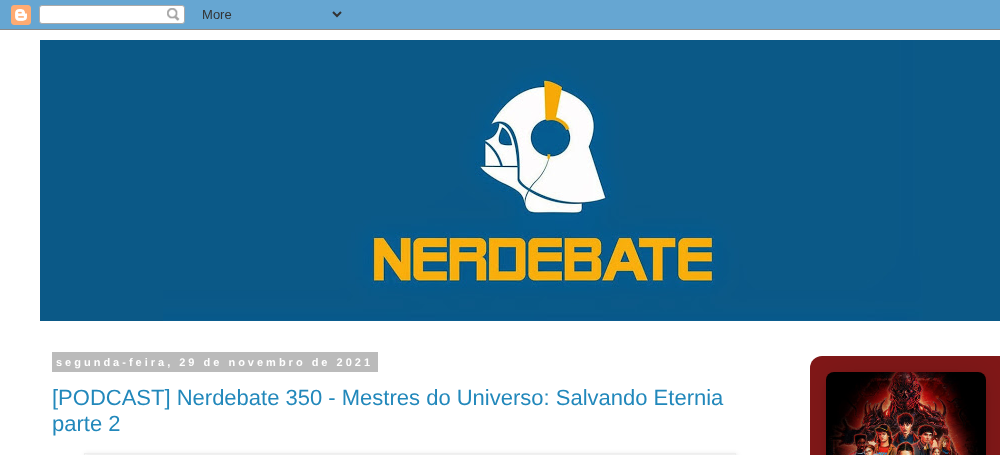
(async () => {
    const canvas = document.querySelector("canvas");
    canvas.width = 1000;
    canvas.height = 455;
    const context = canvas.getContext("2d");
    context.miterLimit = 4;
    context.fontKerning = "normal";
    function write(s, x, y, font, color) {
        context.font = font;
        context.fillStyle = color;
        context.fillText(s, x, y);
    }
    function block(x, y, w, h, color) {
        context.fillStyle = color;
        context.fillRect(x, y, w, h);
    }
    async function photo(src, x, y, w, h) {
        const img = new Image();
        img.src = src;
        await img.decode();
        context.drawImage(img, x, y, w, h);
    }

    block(0, 0, 1000, 455, "rgb(1, 107, 181)");
    await photo("media/1.png", 0, 0, 1000, 30);
    block(0, 30, 1000, 425, "rgb(255, 255, 255)");
    await photo("media/2.png", 40, 40, 960, 281);
    block(52, 352, 326, 20, "rgb(187, 187, 187)");
    context.letterSpacing = "3px";
    write("segunda-feira, 29 de novembro de 2021", 56, 366, "bold 11px Liberation Sans", "rgb(255, 255, 255)");
    context.letterSpacing = "0px";
    write("[PODCAST] Nerdebate 350 - Mestres do Universo: Salvando Eternia", 52, 405, "22px Liberation Sans", "rgb(34, 136, 187)");
    write("parte 2", 52, 431, "22px Liberation Sans", "rgb(34, 136, 187)");
    context.fillStyle = "rgba(0, 0, 0, 0.1)";
    context.filter = "blur(2.5px)";
    context.beginPath();
    context.rect(85, 454, 652, 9);
    context.fill();
    context.filter = "none";
    context.strokeStyle = "rgb(238, 238, 238)";
    context.strokeRect(84.5, 453.5, 651, 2);
    await photo("media/3.png", 810, 356, 190, 99);
})();
